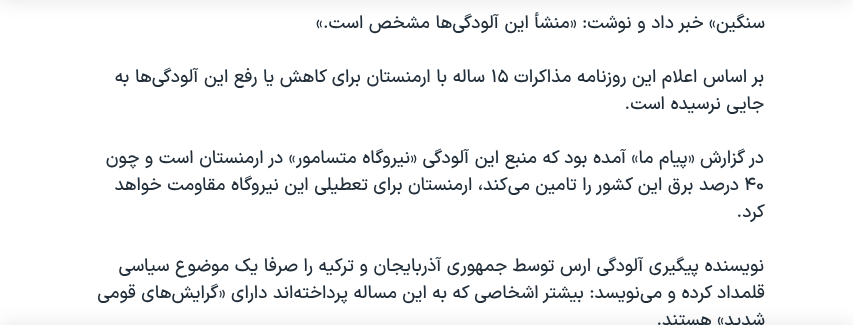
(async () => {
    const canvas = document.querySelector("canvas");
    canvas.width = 853;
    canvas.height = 325;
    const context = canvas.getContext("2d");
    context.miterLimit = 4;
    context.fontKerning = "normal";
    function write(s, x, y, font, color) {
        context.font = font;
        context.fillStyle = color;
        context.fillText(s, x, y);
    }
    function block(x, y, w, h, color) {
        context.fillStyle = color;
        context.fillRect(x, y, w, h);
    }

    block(0, 0, 853, 325, "rgb(255, 255, 255)");
    context.fillStyle = "rgba(0, 0, 0, 0.1)";
    context.filter = "blur(10px)";
    context.beginPath();
    context.rect(0, -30, 853, 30);
    context.fill();
    context.filter = "none";
    context.filter = "blur(10px)";
    context.beginPath();
    context.rect(0, 325, 853, 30);
    context.fill();
    context.filter = "none";
    context.direction = "rtl";
    write("سنگین» خبر داد و نوشت: «منشأ این آلودگی‌ها مشخص است.»", 765, 28, "500 18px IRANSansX", "rgb(34, 47, 58)");
    write("بر اساس اعلام این روزنامه مذاکرات", 764, 82, "500 18px IRANSansX", "rgb(34, 47, 58)");
    context.direction = "ltr";
    write("۱۵", 491, 82, "500 18px IRANSansX", "rgb(34, 47, 58)");
    context.direction = "rtl";
    write("ساله با ارمنستان برای کاهش یا رفع این آلودگی‌ها به", 485, 82, "500 18px IRANSansX", "rgb(34, 47, 58)");
    write("جایی نرسیده است.", 764, 109, "500 18px IRANSansX", "rgb(34, 47, 58)");
    write("در گزارش «پیام ما» آمده بود که منبع این آلودگی «نیروگاه متسامور» در ارمنستان است و چون", 764, 163, "500 18px IRANSansX", "rgb(34, 47, 58)");
    context.direction = "ltr";
    write("۴۰", 744, 190, "500 18px IRANSansX", "rgb(34, 47, 58)");
    context.direction = "rtl";
    write("درصد برق این کشور را تامین می‌کند، ارمنستان برای تعطیلی این نیروگاه مقاومت خواهد", 739, 190, "500 18px IRANSansX", "rgb(34, 47, 58)");
    write("کرد.", 765, 217, "500 18px IRANSansX", "rgb(34, 47, 58)");
    write("نویسنده پیگیری آلودگی ارس توسط جمهوری آذربایجان و ترکیه را صرفا یک موضوع سیاسی", 764, 271, "500 18px IRANSansX", "rgb(34, 47, 58)");
    write("قلمداد کرده و می‌نویسد: بیشتر اشخاصی که به این مساله پرداخته‌اند دارای «گرایش‌های قومی", 765, 298, "500 18px IRANSansX", "rgb(34, 47, 58)");
    write("شدید» هستند.", 765, 325, "500 18px IRANSansX", "rgb(34, 47, 58)");
})();
